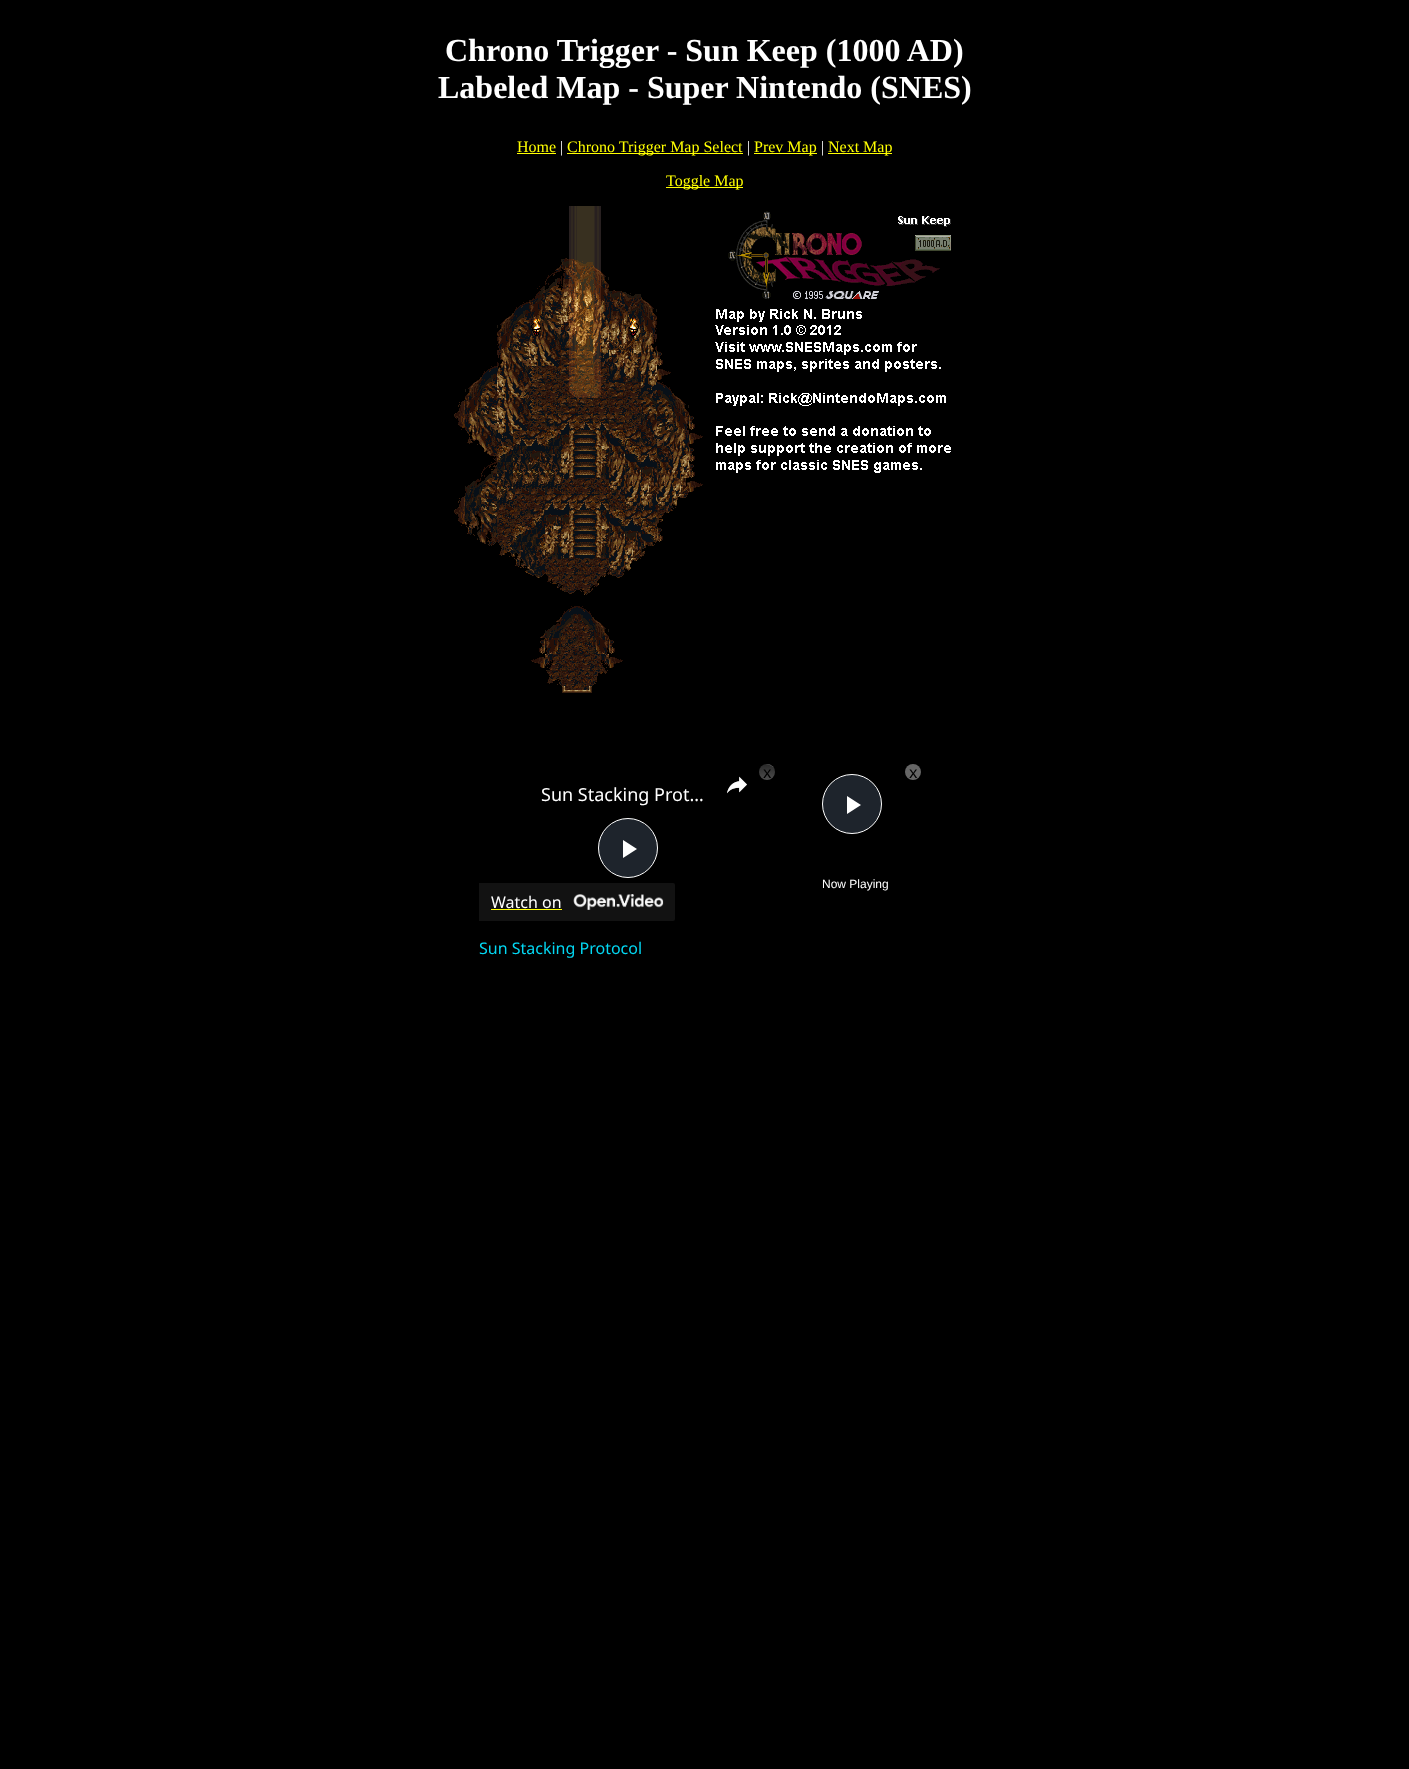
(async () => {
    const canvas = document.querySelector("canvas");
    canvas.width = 1409;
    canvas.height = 1769;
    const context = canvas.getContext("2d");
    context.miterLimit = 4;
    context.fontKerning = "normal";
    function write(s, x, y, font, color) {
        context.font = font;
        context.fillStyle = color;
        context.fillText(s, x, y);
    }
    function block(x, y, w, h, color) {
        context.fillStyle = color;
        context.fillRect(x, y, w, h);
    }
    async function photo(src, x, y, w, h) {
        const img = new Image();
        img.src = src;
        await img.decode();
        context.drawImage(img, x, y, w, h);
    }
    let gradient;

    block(0, 0, 1409, 1769, "rgb(0, 0, 0)");
    write("Chrono Trigger - Sun Keep (1000 AD)", 445, 61, "bold 32px Liberation Serif", "rgb(255, 255, 255)");
    write("Labeled Map - Super Nintendo (SNES)", 438, 98, "bold 32px Liberation Serif", "rgb(255, 255, 255)");
    write("Home", 517, 152, "16px Liberation Serif", "rgb(255, 255, 0)");
    block(517, 153, 39, 1, "rgb(255, 255, 0)");
    write("|", 560, 152, "16px Liberation Serif", "rgb(255, 255, 255)");
    block(567, 153, 176, 1, "rgb(255, 255, 0)");
    write("Chrono Trigger Map Select", 567, 152, "16px Liberation Serif", "rgb(255, 255, 0)");
    write("|", 747, 152, "16px Liberation Serif", "rgb(255, 255, 255)");
    block(754, 153, 63, 1, "rgb(255, 255, 0)");
    write("Prev Map", 754, 152, "16px Liberation Serif", "rgb(255, 255, 0)");
    write("|", 821, 152, "16px Liberation Serif", "rgb(255, 255, 255)");
    block(828, 153, 64, 1, "rgb(255, 255, 0)");
    write("Next Map", 828, 152, "16px Liberation Serif", "rgb(255, 255, 0)");
    block(666, 187, 77, 1, "rgb(255, 255, 0)");
    write("Toggle Map", 666, 186, "16px Liberation Serif", "rgb(255, 255, 0)");
    await photo("media/1.png", 454, 206, 497, 487);
    context.fillStyle = "rgb(102, 102, 102)";
    context.beginPath();
    context.arc(767, 772, 8, 0, Math.PI * 2);
    context.fill();
    context.fillStyle = "rgb(30, 36, 44)";
    context.beginPath();
    context.arc(628, 848, 29.5, 0, Math.PI * 2);
    context.fill();
    context.strokeStyle = "rgb(255, 255, 255)";
    context.stroke();
    context.fillStyle = "rgb(255, 255, 255)";
    context.beginPath();
    context.moveTo(623, 840);
    context.lineTo(623, 858);
    context.lineTo(637, 849);
    context.closePath();
    context.fill();
    gradient = context.createLinearGradient(628, 764, 628, 932);
    gradient.addColorStop(0, "rgba(0, 0, 0, 0.6)");
    gradient.addColorStop(0.16, "rgba(0, 0, 0, 0)");
    gradient.addColorStop(0.84, "rgba(0, 0, 0, 0)");
    gradient.addColorStop(1, "rgba(0, 0, 0, 0.8)");
    context.fillStyle = gradient;
    context.beginPath();
    context.roundRect(479, 764, 298, 168, 12);
    context.fill();
    write("x", 763, 778, "16px Noto Sans", "rgb(0, 0, 0)");
    await photo("media/2.png", 727, 776, 20, 18);
    write("Sun Stacking Prot…", 541, 801, "18px Noto Sans", "rgb(255, 255, 255)");
    context.fillStyle = "rgb(18, 18, 18)";
    context.beginPath();
    context.roundRect(479, 883, 196, 38, [0, 2, 2, 0]);
    context.fill();
    write("Watch on", 491, 908, "16px Noto Sans", "rgb(255, 255, 255)");
    block(491, 909, 71, 1, "rgb(255, 255, 0)");
    await photo("media/3.png", 573, 894, 91, 16);
    context.fillStyle = "rgb(30, 36, 44)";
    context.beginPath();
    context.arc(852, 804, 29.5, 0, Math.PI * 2);
    context.fill();
    context.stroke();
    context.fillStyle = "rgb(255, 255, 255)";
    context.beginPath();
    context.moveTo(847, 796);
    context.lineTo(847, 814);
    context.lineTo(861, 805);
    context.closePath();
    context.fill();
    context.fillStyle = "rgb(102, 102, 102)";
    context.beginPath();
    context.arc(913, 772, 8, 0, Math.PI * 2);
    context.fill();
    write("x", 909, 778, "16px Noto Sans", "rgb(0, 0, 0)");
    write("Now Playing", 822, 888, "12px Liberation Sans", "rgb(255, 255, 255)");
    write("Sun Stacking Protocol", 479, 954, "16px Noto Sans", "rgb(3, 216, 243)");
})();
